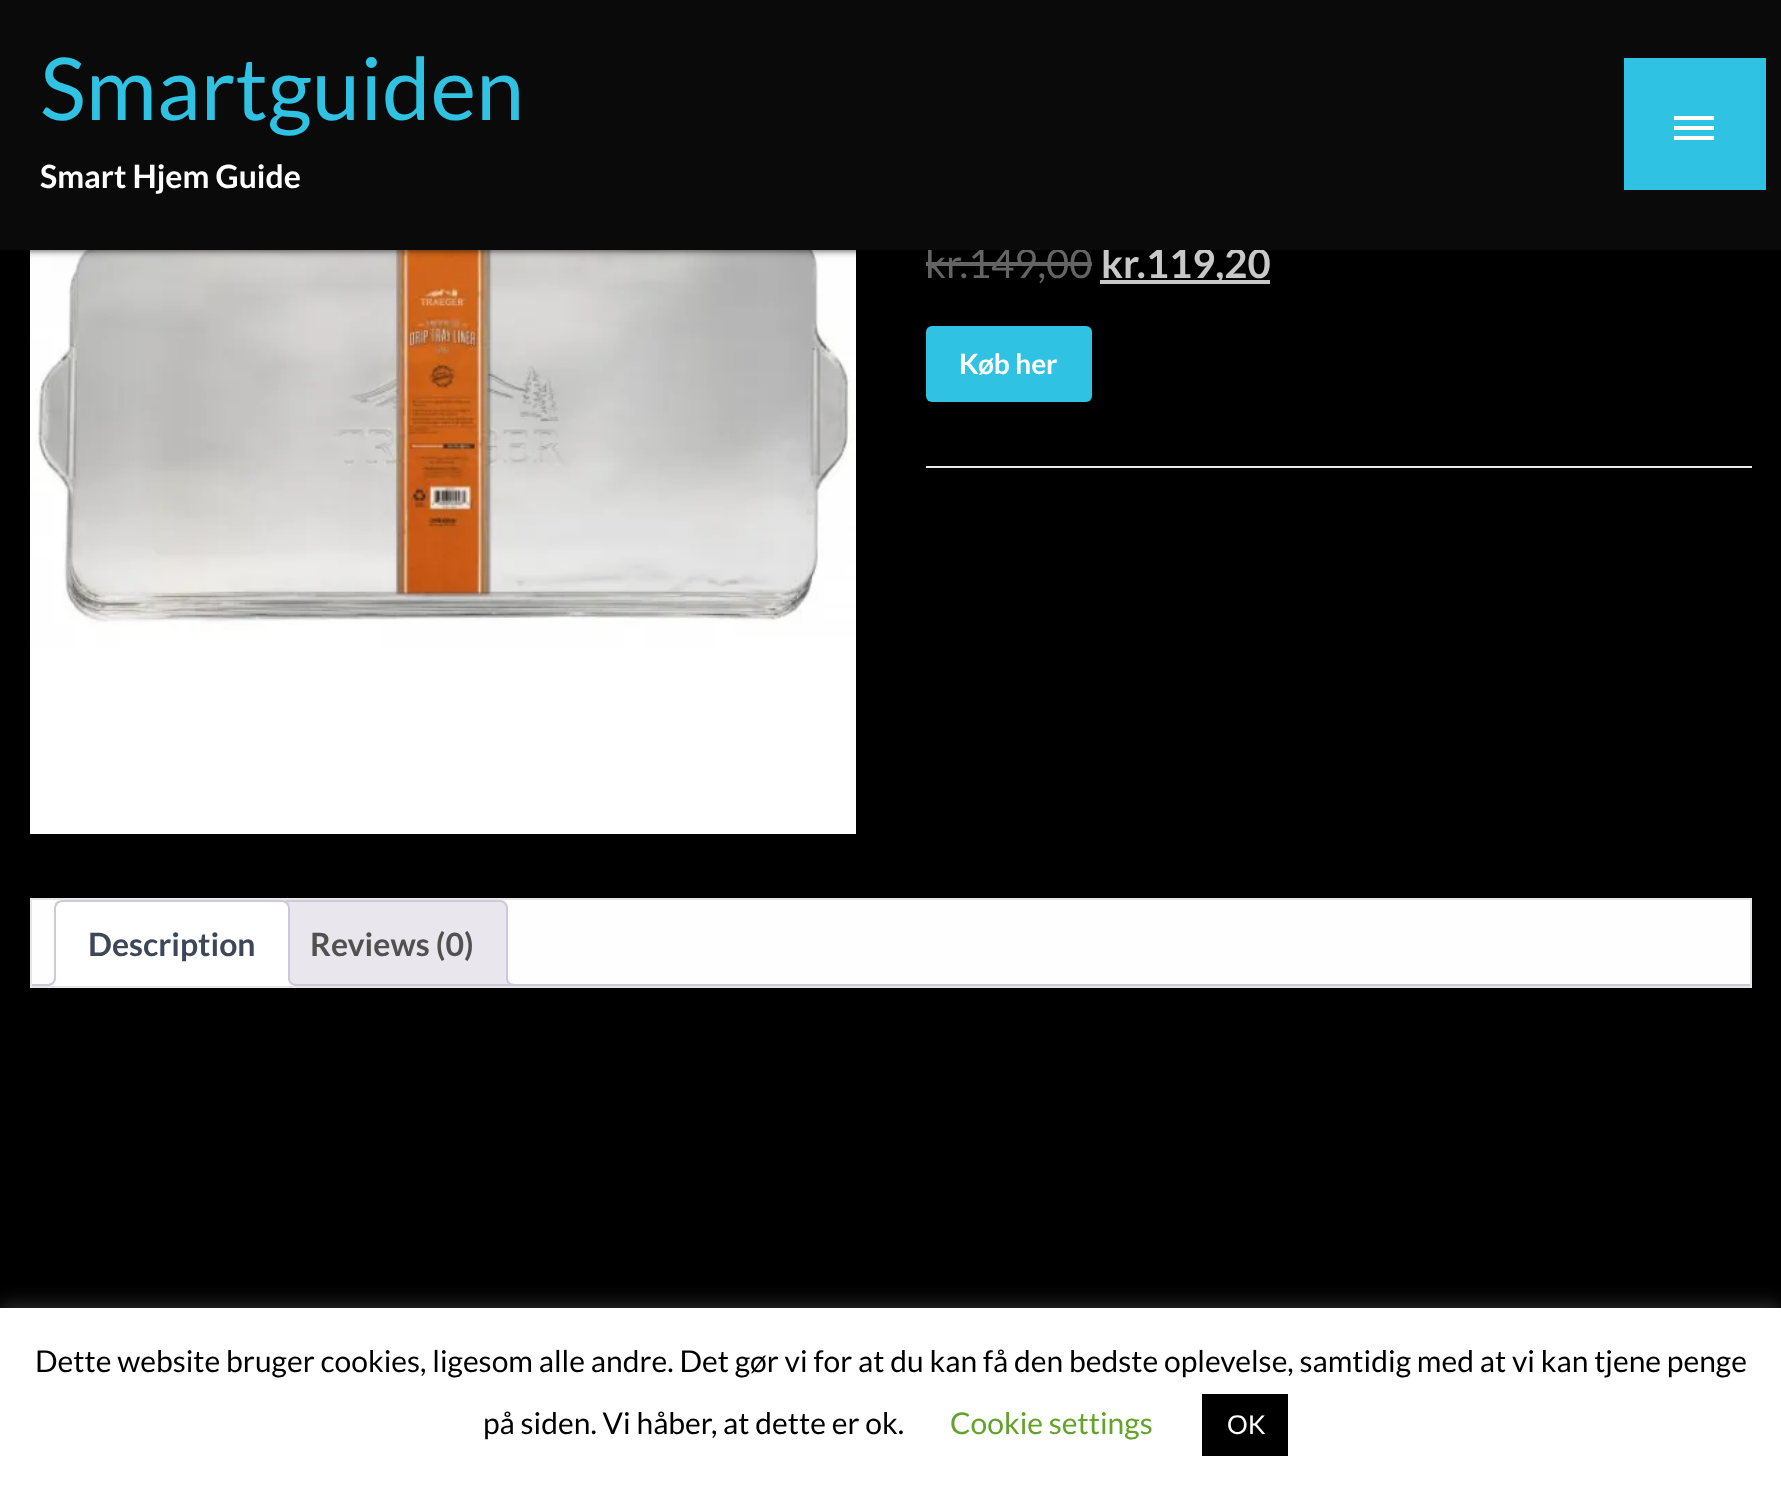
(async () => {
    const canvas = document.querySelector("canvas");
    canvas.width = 1781;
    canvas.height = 1490;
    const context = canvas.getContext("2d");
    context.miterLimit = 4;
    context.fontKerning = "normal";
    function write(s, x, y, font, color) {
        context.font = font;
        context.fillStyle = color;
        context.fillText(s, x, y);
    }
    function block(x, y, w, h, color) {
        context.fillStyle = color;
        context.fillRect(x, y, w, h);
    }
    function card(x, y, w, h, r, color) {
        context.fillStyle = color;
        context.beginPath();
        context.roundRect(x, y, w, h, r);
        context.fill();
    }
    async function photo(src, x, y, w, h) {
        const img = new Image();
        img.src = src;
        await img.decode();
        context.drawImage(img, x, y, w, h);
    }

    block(0, 0, 1781, 1490, "rgb(0, 0, 0)");
    await photo("media/1.png", 30, 250, 826, 584);
    block(926, 262, 166, 4, "rgb(100, 100, 100)");
    context.fillStyle = "rgba(0, 0, 0, 0.12)";
    context.filter = "blur(5px)";
    context.beginPath();
    context.rect(0, 2, 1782, 250);
    context.fill();
    context.filter = "none";
    context.fillStyle = "rgba(0, 0, 0, 0.2)";
    context.filter = "blur(1px)";
    context.beginPath();
    context.rect(4, 10, 1774, 242);
    context.fill();
    context.filter = "none";
    context.fillStyle = "rgba(0, 0, 0, 0.14)";
    context.filter = "blur(2px)";
    context.beginPath();
    context.rect(0, 4, 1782, 250);
    context.fill();
    context.filter = "none";
    write("kr.149,00", 925, 278, "40px Lato", "rgb(100, 100, 100)");
    block(1100, 280, 170, 4, "rgb(200, 200, 200)");
    write("kr.119,20", 1101, 278, "bold 40px Lato", "rgb(200, 200, 200)");
    block(0, 0, 1781, 250, "rgb(10, 10, 10)");
    write("Smartguiden", 40, 120, "86.5px Lato", "rgb(47, 194, 227)");
    write("Smart Hjem Guide", 40, 188, "bold 32px Lato", "rgb(255, 255, 255)");
    block(1624, 58, 142, 132, "rgb(47, 194, 227)");
    block(1674, 116, 40, 4, "rgb(255, 255, 255)");
    block(1674, 126, 40, 4, "rgb(255, 255, 255)");
    block(1674, 136, 40, 4, "rgb(255, 255, 255)");
    card(926, 326, 166, 76, 6, "rgb(47, 194, 227)");
    write("Køb her", 959, 374, "bold 28px Lato", "rgb(255, 255, 255)");
    block(926, 466, 826, 2, "rgb(234, 234, 234)");
    block(32, 900, 1718, 84, "rgb(254, 254, 254)");
    context.strokeStyle = "rgb(230, 230, 230)";
    context.lineWidth = 2;
    context.strokeRect(31, 899, 1720, 88);
    context.fillStyle = "rgb(233, 230, 237)";
    context.beginPath();
    context.roundRect(277, 901, 230, 84, [7, 7, 0, 0]);
    context.fill();
    context.strokeStyle = "rgb(207, 200, 216)";
    context.stroke();
    context.save();
    context.beginPath();
    context.rect(32, 900, 1718, 86);
    context.clip();
    context.beginPath();
    context.moveTo(502, 980);
    context.bezierCurveTo(502, 987, 505, 990, 512, 990);
    context.lineTo(512, 985.5);
    context.bezierCurveTo(509, 985, 507, 983, 506.5, 980);
    context.closePath();
    context.fill();
    context.restore();
    context.fillStyle = "rgb(207, 200, 216)";
    context.beginPath();
    context.moveTo(506, 976);
    context.lineTo(516, 976);
    context.lineTo(516, 986);
    context.bezierCurveTo(511, 986, 506, 984, 506, 978);
    context.closePath();
    context.moveTo(508, 976);
    context.lineTo(516, 976);
    context.lineTo(516, 984);
    context.bezierCurveTo(512, 984, 508, 983, 508, 978);
    context.closePath();
    context.fill("evenodd");
    block(32, 984, 1718, 2, "rgb(207, 200, 216)");
    context.fillStyle = "rgb(255, 255, 255)";
    context.beginPath();
    context.roundRect(54, 900, 236, 86, [8, 8, 0, 0]);
    context.fill();
    context.fillStyle = "rgb(207, 200, 216)";
    context.beginPath();
    context.moveTo(62, 900);
    context.bezierCurveTo(60, 900, 58, 901, 56, 902);
    context.lineTo(58, 904);
    context.bezierCurveTo(59, 903, 60, 902, 62, 902);
    context.lineTo(282, 902);
    context.bezierCurveTo(284, 902, 285, 903, 286, 904);
    context.lineTo(288, 902);
    context.bezierCurveTo(286, 901, 284, 900, 282, 900);
    context.closePath();
    context.fill();
    context.beginPath();
    context.moveTo(290, 986);
    context.lineTo(290, 908);
    context.bezierCurveTo(290, 906, 289, 904, 288, 902);
    context.lineTo(286, 904);
    context.lineTo(288, 907);
    context.lineTo(288, 984);
    context.closePath();
    context.fill();
    context.fillStyle = "rgb(255, 255, 255)";
    context.beginPath();
    context.moveTo(290, 986);
    context.lineTo(288, 984);
    context.lineTo(56, 984);
    context.lineTo(54, 986);
    context.closePath();
    context.fill();
    context.fillStyle = "rgb(207, 200, 216)";
    context.beginPath();
    context.moveTo(54, 986);
    context.lineTo(56, 984);
    context.lineTo(56, 907);
    context.lineTo(58, 904);
    context.lineTo(56, 902);
    context.bezierCurveTo(55, 904, 54, 906, 54, 908);
    context.closePath();
    context.fill();
    write("Description", 88, 956, "bold 32px Lato", "rgb(60, 72, 88)");
    context.save();
    context.beginPath();
    context.rect(32, 900, 1718, 86);
    context.clip();
    context.fillStyle = "rgb(255, 255, 255)";
    context.beginPath();
    context.moveTo(50, 985.5);
    context.lineTo(50, 990);
    context.bezierCurveTo(57, 990, 60, 987, 60, 980);
    context.lineTo(55.5, 980);
    context.bezierCurveTo(55, 983, 53, 985, 50, 985.5);
    context.closePath();
    context.fill();
    context.restore();
    context.fillStyle = "rgb(207, 200, 216)";
    context.beginPath();
    context.moveTo(46, 976);
    context.lineTo(56, 976);
    context.bezierCurveTo(56, 983, 53, 986, 46, 986);
    context.closePath();
    context.moveTo(46, 976);
    context.lineTo(54, 976);
    context.bezierCurveTo(54, 982, 52, 984, 46, 984);
    context.closePath();
    context.fill("evenodd");
    context.save();
    context.beginPath();
    context.rect(32, 900, 1718, 86);
    context.clip();
    context.fillStyle = "rgb(255, 255, 255)";
    context.beginPath();
    context.moveTo(284, 980);
    context.bezierCurveTo(284, 987, 287, 990, 294, 990);
    context.lineTo(294, 985.5);
    context.bezierCurveTo(291, 985, 289, 983, 288.5, 980);
    context.closePath();
    context.fill();
    context.restore();
    context.beginPath();
    context.moveTo(288, 976);
    context.lineTo(298, 976);
    context.lineTo(298, 986);
    context.bezierCurveTo(293, 986, 288, 984, 288, 978);
    context.closePath();
    context.moveTo(290, 976);
    context.lineTo(298, 976);
    context.lineTo(298, 984);
    context.bezierCurveTo(294, 984, 290, 983, 290, 978);
    context.closePath();
    context.fill("evenodd");
    write("Reviews (0)", 310, 956, "bold 32px Lato", "rgb(81, 81, 81)");
    context.fillStyle = "rgba(172, 171, 171, 0.3)";
    context.filter = "blur(10px)";
    context.beginPath();
    context.rect(0, 1306, 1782, 182);
    context.fill();
    context.filter = "none";
    block(0, 1308, 1781, 182, "rgb(255, 255, 255)");
    write("Dette website bruger cookies, ligesom alle andre. Det gør vi for at du kan få den bedste oplevelse, samtidig med at vi kan tjene penge", 35, 1372, "30px Lato", "rgb(0, 0, 0)");
    write("på siden. Vi håber, at dette er ok.", 483, 1434, "30px Lato", "rgb(0, 0, 0)");
    write("Cookie settings", 950, 1434, "30px Lato", "rgb(98, 163, 41)");
    block(1202, 1394, 86, 62, "rgb(0, 0, 0)");
    write("OK", 1227, 1434, "26px Lato", "rgb(255, 255, 255)");
})();
